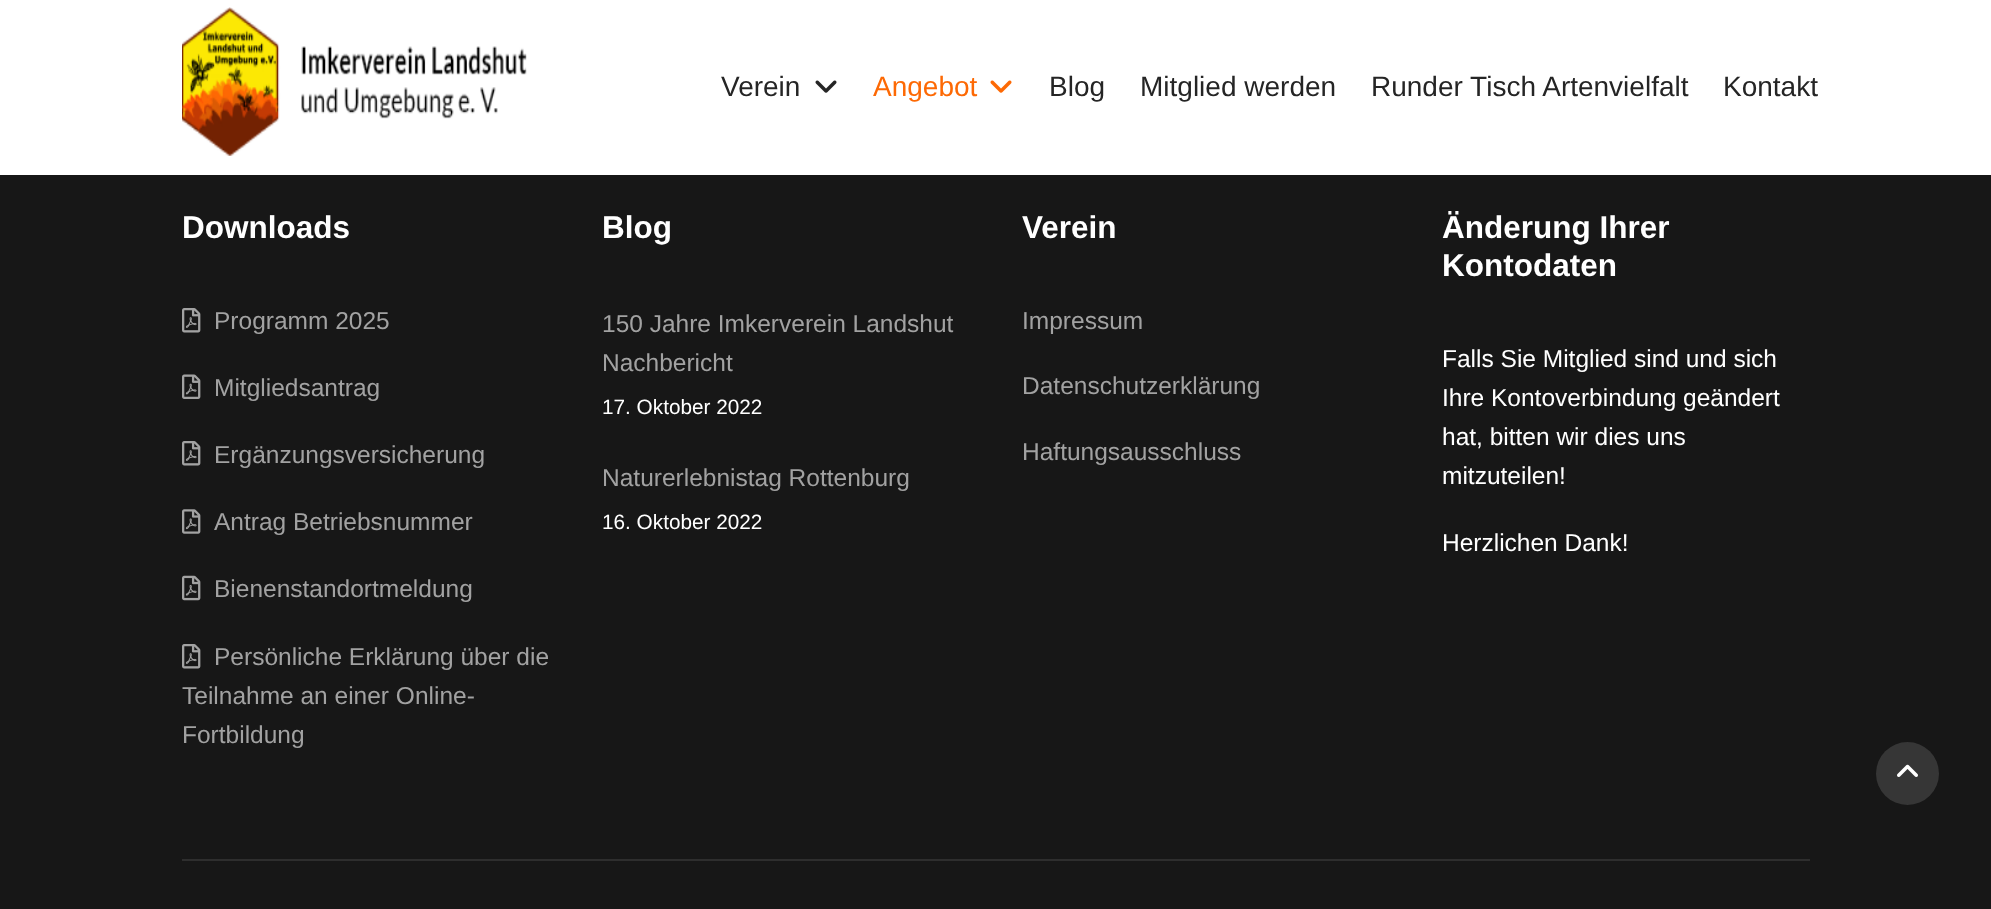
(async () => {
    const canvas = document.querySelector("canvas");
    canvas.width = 1991;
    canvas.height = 909;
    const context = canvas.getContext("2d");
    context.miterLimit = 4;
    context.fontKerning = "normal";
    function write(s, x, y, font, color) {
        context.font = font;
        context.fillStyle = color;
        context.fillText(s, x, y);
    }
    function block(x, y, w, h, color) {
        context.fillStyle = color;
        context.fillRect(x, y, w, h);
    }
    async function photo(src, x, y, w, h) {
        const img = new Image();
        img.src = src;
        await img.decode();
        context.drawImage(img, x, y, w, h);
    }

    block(0, 0, 1991, 909, "rgb(23, 23, 23)");
    block(0, 0, 1991, 175, "rgb(255, 255, 255)");
    await photo("media/1.png", 182, 7, 345, 149);
    write("Verein", 721, 96, "28px Liberation Sans", "rgb(37, 37, 37)");
    await photo("media/2.png", 815, 80, 22, 13);
    write("Angebot", 873, 96, "28px Liberation Sans", "rgb(253, 105, 4)");
    await photo("media/3.png", 990, 80, 22, 13);
    write("Blog", 1049, 96, "28px Liberation Sans", "rgb(37, 37, 37)");
    write("Mitglied werden", 1140, 96, "28px Liberation Sans", "rgb(37, 37, 37)");
    write("Runder Tisch Artenvielfalt", 1371, 96, "28px Liberation Sans", "rgb(37, 37, 37)");
    write("Kontakt", 1723, 96, "28px Liberation Sans", "rgb(37, 37, 37)");
    write("Downloads", 182, 238, "bold 31.5px Liberation Sans", "rgb(255, 255, 255)");
    await photo("media/4.png", 182, 308, 19, 25);
    write("Programm 2025", 214, 329, "24.5px Liberation Sans", "rgb(162, 162, 162)");
    await photo("media/5.png", 182, 374, 19, 25);
    write("Mitgliedsantrag", 214, 396, "24.5px Liberation Sans", "rgb(162, 162, 162)");
    await photo("media/4.png", 182, 441, 19, 25);
    write("Ergänzungsversicherung", 214, 463, "24.5px Liberation Sans", "rgb(162, 162, 162)");
    await photo("media/6.png", 182, 509, 19, 25);
    write("Antrag Betriebsnummer", 214, 530, "24.5px Liberation Sans", "rgb(162, 162, 162)");
    await photo("media/7.png", 182, 575, 19, 26);
    write("Bienenstandortmeldung", 214, 597, "24.5px Liberation Sans", "rgb(162, 162, 162)");
    await photo("media/4.png", 182, 644, 19, 25);
    write("Persönliche Erklärung über die", 214, 665, "24.5px Liberation Sans", "rgb(162, 162, 162)");
    write("Teilnahme an einer Online-", 182, 704, "24.5px Liberation Sans", "rgb(162, 162, 162)");
    write("Fortbildung", 182, 743, "24.5px Liberation Sans", "rgb(162, 162, 162)");
    write("Blog", 602, 238, "bold 31.5px Liberation Sans", "rgb(255, 255, 255)");
    write("150 Jahre Imkerverein Landshut", 602, 332, "24.5px Liberation Sans", "rgb(162, 162, 162)");
    write("Nachbericht", 602, 371, "24.5px Liberation Sans", "rgb(162, 162, 162)");
    write("17. Oktober 2022", 602, 414, "20.75px Liberation Sans", "rgb(255, 255, 255)");
    write("Naturerlebnistag Rottenburg", 602, 486, "24.5px Liberation Sans", "rgb(162, 162, 162)");
    write("16. Oktober 2022", 602, 529, "20.75px Liberation Sans", "rgb(255, 255, 255)");
    write("Verein", 1022, 238, "bold 31.5px Liberation Sans", "rgb(255, 255, 255)");
    write("Impressum", 1022, 329, "24.5px Liberation Sans", "rgb(162, 162, 162)");
    write("Datenschutzerklärung", 1022, 394, "24.5px Liberation Sans", "rgb(162, 162, 162)");
    write("Haftungsausschluss", 1022, 460, "24.5px Liberation Sans", "rgb(162, 162, 162)");
    write("Änderung Ihrer", 1442, 238, "bold 31.5px Liberation Sans", "rgb(255, 255, 255)");
    write("Kontodaten", 1442, 276, "bold 31.5px Liberation Sans", "rgb(255, 255, 255)");
    write("Falls Sie Mitglied sind und sich", 1442, 367, "24.5px Liberation Sans", "rgb(255, 255, 255)");
    write("Ihre Kontoverbindung geändert", 1442, 406, "24.5px Liberation Sans", "rgb(255, 255, 255)");
    write("hat, bitten wir dies uns", 1442, 445, "24.5px Liberation Sans", "rgb(255, 255, 255)");
    write("mitzuteilen!", 1442, 484, "24.5px Liberation Sans", "rgb(255, 255, 255)");
    write("Herzlichen Dank!", 1442, 551, "24.5px Liberation Sans", "rgb(255, 255, 255)");
    block(182, 859, 1628, 2, "rgb(46, 46, 46)");
    context.fillStyle = "rgb(54, 54, 54)";
    context.beginPath();
    context.arc(1907.5, 773.5, 31.5, 0, Math.PI * 2);
    context.fill();
    await photo("media/8.png", 1897, 764, 21, 13);
})();
